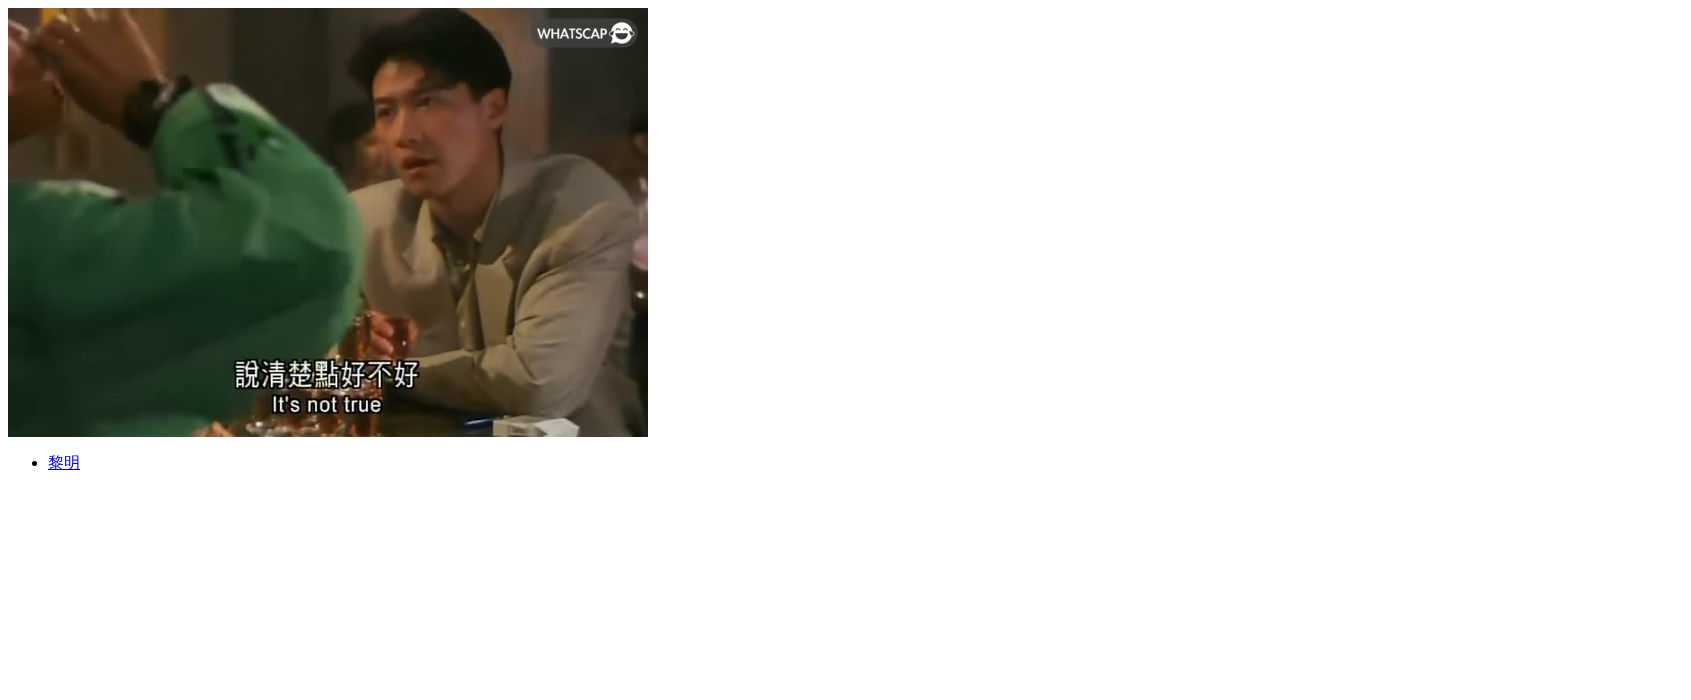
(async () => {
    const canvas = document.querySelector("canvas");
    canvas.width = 1691;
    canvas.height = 700;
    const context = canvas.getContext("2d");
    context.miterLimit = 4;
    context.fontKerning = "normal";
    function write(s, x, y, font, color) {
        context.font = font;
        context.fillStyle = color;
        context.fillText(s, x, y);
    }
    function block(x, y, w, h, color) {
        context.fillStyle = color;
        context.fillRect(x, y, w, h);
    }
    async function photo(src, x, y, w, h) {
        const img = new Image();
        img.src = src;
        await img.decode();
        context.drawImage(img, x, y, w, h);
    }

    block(0, 0, 1691, 700, "rgb(255, 255, 255)");
    await photo("media/1.png", 8, 8, 640, 429);
    context.fillStyle = "rgb(0, 0, 0)";
    context.beginPath();
    context.arc(34.5, 463.5, 2.5, 0, Math.PI * 2);
    context.fill();
    block(48, 469, 32, 1, "rgb(0, 0, 238)");
    write("黎明", 48, 468, "500 16px WenQuanYi Zen Hei", "rgb(0, 0, 238)");
})();
